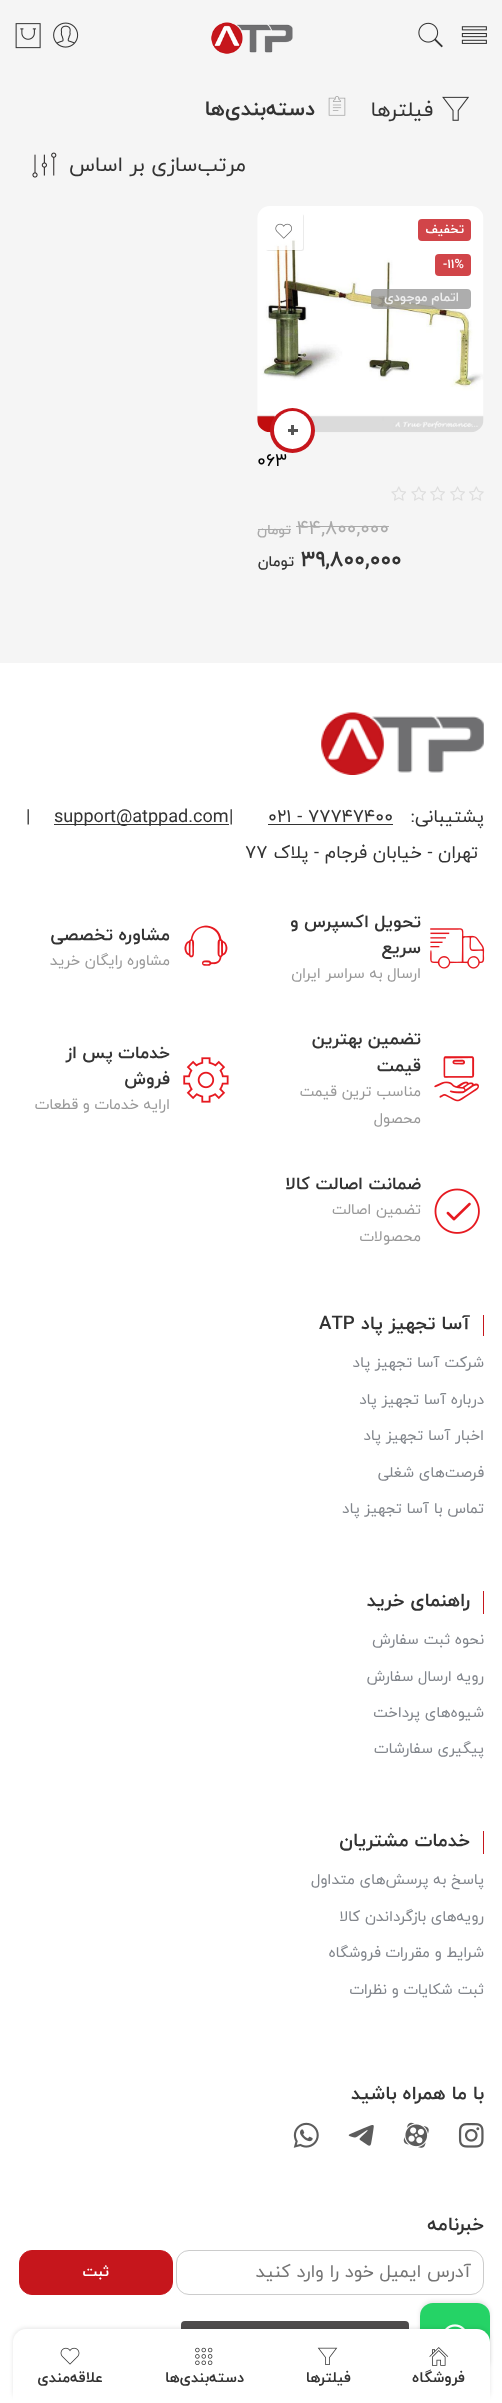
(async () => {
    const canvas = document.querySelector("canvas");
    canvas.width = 502;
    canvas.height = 2403;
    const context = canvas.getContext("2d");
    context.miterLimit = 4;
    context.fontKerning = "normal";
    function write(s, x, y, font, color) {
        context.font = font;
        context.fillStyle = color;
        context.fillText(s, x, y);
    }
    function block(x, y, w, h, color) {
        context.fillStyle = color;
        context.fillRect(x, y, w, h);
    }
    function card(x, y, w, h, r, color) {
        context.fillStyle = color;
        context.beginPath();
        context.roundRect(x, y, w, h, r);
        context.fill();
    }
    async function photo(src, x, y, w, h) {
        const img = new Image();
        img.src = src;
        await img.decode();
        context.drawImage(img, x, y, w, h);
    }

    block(0, 0, 502, 2403, "rgb(245, 245, 245)");
    await photo("media/1.png", 461, 26, 26, 18);
    await photo("media/2.png", 418, 22, 25, 26);
    await photo("media/3.png", 211, 22, 82, 32);
    await photo("media/4.png", 53, 22, 26, 26);
    await photo("media/5.png", 15, 23, 26, 26);
    await photo("media/6.png", 442, 96, 27, 25);
    context.direction = "rtl";
    write("فیلترها", 433, 116, "20.75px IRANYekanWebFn", "rgb(51, 51, 51)");
    await photo("media/7.png", 328, 96, 18, 20);
    write("دسته‌بندی‌ها", 315, 115, "bold 21px IRANYekanWebFn", "rgb(51, 51, 51)");
    write("مرتب‌سازی بر اساس", 246, 171, "20.75px IRANYekanWebFn", "rgb(51, 51, 51)");
    await photo("media/8.png", 32, 152, 25, 26);
    await photo("media/9.png", 257, 206, 227, 227);
    card(418, 219, 53, 22, 4, "rgb(209, 69, 73)");
    write("تخفیف", 464, 233, "bold 12.75px IRANYekanWebFn", "rgb(255, 255, 255)");
    card(435, 254, 36, 22, 4, "rgb(209, 69, 73)");
    context.direction = "ltr";
    write("-11%", 443, 268, "bold 12.75px IRANYekanWebFn", "rgb(255, 255, 255)");
    card(371, 289, 100, 20, 4, "rgba(153, 153, 153, 0.8)");
    context.direction = "rtl";
    write("اتمام موجودی", 459, 301, "bold 12.75px IRANYekanWebFn", "rgb(238, 238, 238)");
    context.save();
    context.beginPath();
    context.moveTo(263, 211);
    context.lineTo(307, 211);
    context.lineTo(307, 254);
    context.lineTo(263, 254);
    context.closePath();
    context.moveTo(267.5, 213);
    context.lineTo(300.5, 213);
    context.bezierCurveTo(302, 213, 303, 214, 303, 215.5);
    context.lineTo(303, 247.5);
    context.bezierCurveTo(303, 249, 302, 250, 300.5, 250);
    context.lineTo(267.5, 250);
    context.bezierCurveTo(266, 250, 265, 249, 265, 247.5);
    context.lineTo(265, 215.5);
    context.bezierCurveTo(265, 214, 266, 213, 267.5, 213);
    context.closePath();
    context.clip("evenodd");
    context.fillStyle = "rgba(0, 0, 0, 0.08)";
    context.filter = "blur(0.5px)";
    context.beginPath();
    context.roundRect(266, 214, 38, 37, 2.5);
    context.fill();
    context.filter = "none";
    context.restore();
    card(265, 213, 38, 37, 2.5, "rgba(255, 255, 255, 0.8)");
    await photo("media/10.png", 275, 223, 17, 16);
    context.fillStyle = "rgb(198, 22, 28)";
    context.beginPath();
    context.arc(292.5, 430.5, 22.5, 0, Math.PI * 2);
    context.fill();
    card(274, 411, 37, 38, 18.5, "rgb(255, 255, 255)");
    block(288, 429, 10, 3, "rgb(85, 85, 85)");
    block(291, 425, 3, 10, "rgb(85, 85, 85)");
    context.direction = "ltr";
    write("063", 257, 466, "18.1px IRANYekanWebFn", "rgb(0, 0, 0)");
    await photo("media/11.png", 391, 486, 15, 15);
    await photo("media/11.png", 411, 486, 15, 15);
    await photo("media/12.png", 430, 486, 15, 15);
    await photo("media/12.png", 450, 486, 15, 15);
    await photo("media/13.png", 469, 486, 15, 15);
    write("۴۴,۸۰۰,۰۰۰", 297, 534, "19.5px IRANYekanWebFn", "rgb(170, 170, 170)");
    block(296, 526, 93, 1, "rgb(170, 170, 170)");
    context.direction = "rtl";
    write("تومان", 291, 534, "500 14px IRANYekanWebFn", "rgb(170, 170, 170)");
    block(258, 529, 33, 1, "rgb(170, 170, 170)");
    context.direction = "ltr";
    write("۳۹,۸۰۰,۰۰۰", 301, 566, "bold 21.75px IRANYekanWebFn", "rgb(51, 51, 51)");
    context.direction = "rtl";
    write("تومان", 294, 566, "500 15px IRANYekanWebFn", "rgb(51, 51, 51)");
    block(0, 663, 502, 1740, "rgb(255, 255, 255)");
    await photo("media/14.png", 321, 712, 163, 63);
    write("پشتیبانی:", 484, 822, "18.1px IRANYekanWebFn", "rgb(51, 51, 51)");
    context.direction = "ltr";
    write("021 - 77747400", 268, 822, "18.1px IRANYekanWebFn", "rgb(51, 51, 51)");
    block(268, 824, 125, 1, "rgb(51, 51, 51)");
    write("|", 229, 822, "18.1px IRANYekanWebFn", "rgb(51, 51, 51)");
    block(54, 824, 175, 1, "rgb(51, 51, 51)");
    write("support@atppad.com", 54, 822, "18.1px IRANYekanWebFn", "rgb(51, 51, 51)");
    write("|", 26, 822, "18.1px IRANYekanWebFn", "rgb(51, 51, 51)");
    context.direction = "rtl";
    write("تهران - خیابان فرجام - پلاک", 478, 858, "18.1px IRANYekanWebFn", "rgb(51, 51, 51)");
    context.direction = "ltr";
    write("77", 245, 858, "18.1px IRANYekanWebFn", "rgb(51, 51, 51)");
    await photo("media/15.png", 430, 928, 55, 41);
    context.direction = "rtl";
    write("تحویل اکسپرس و", 421, 927, "bold 17.5px IRANYekanWebFn", "rgb(51, 51, 51)");
    write("سریع", 421, 953, "bold 17.5px IRANYekanWebFn", "rgb(51, 51, 51)");
    write("ارسال به سراسر ایران", 421, 978, "15px IRANYekanWebFn", "rgb(153, 153, 153)");
    await photo("media/16.png", 184, 925, 44, 41);
    write("مشاوره تخصصی", 170, 940, "bold 17.5px IRANYekanWebFn", "rgb(51, 51, 51)");
    write("مشاوره رایگان خرید", 170, 965, "15px IRANYekanWebFn", "rgb(153, 153, 153)");
    await photo("media/17.png", 434, 1056, 45, 46);
    write("تضمین بهترین", 421, 1044, "bold 17.5px IRANYekanWebFn", "rgb(51, 51, 51)");
    write("قیمت", 421, 1071, "bold 17.5px IRANYekanWebFn", "rgb(51, 51, 51)");
    write("مناسب ترین قیمت", 421, 1096, "15px IRANYekanWebFn", "rgb(153, 153, 153)");
    write("محصول", 421, 1123, "15px IRANYekanWebFn", "rgb(153, 153, 153)");
    await photo("media/18.png", 183, 1057, 46, 46);
    write("خدمات پس از", 170, 1058, "bold 17.5px IRANYekanWebFn", "rgb(51, 51, 51)");
    write("فروش", 170, 1084, "bold 17.5px IRANYekanWebFn", "rgb(51, 51, 51)");
    write("ارایه خدمات و قطعات", 170, 1109, "15px IRANYekanWebFn", "rgb(153, 153, 153)");
    await photo("media/19.png", 434, 1188, 46, 46);
    write("ضمانت اصالت کالا", 421, 1189, "bold 17.5px IRANYekanWebFn", "rgb(51, 51, 51)");
    write("تضمین اصالت", 421, 1214, "15px IRANYekanWebFn", "rgb(153, 153, 153)");
    write("محصولات", 421, 1241, "15px IRANYekanWebFn", "rgb(153, 153, 153)");
    block(483, 1315, 1, 21, "rgb(198, 22, 28)");
    write("آسا تجهیز پاد", 470, 1329, "bold 18.75px IRANYekanWebFn", "rgb(51, 51, 51)");
    context.direction = "ltr";
    write("ATP", 319, 1329, "bold 18.75px IRANYekanWebFn", "rgb(51, 51, 51)");
    context.direction = "rtl";
    write("شرکت آسا تجهیز پاد", 484, 1367, "15px IRANYekanWebFn", "rgb(129, 133, 139)");
    write("درباره آسا تجهیز پاد", 484, 1404, "15px IRANYekanWebFn", "rgb(129, 133, 139)");
    write("اخبار آسا تجهیز پاد", 484, 1440, "15px IRANYekanWebFn", "rgb(129, 133, 139)");
    write("فرصت‌های شغلی", 484, 1477, "15px IRANYekanWebFn", "rgb(129, 133, 139)");
    write("تماس با آسا تجهیز پاد", 484, 1513, "15px IRANYekanWebFn", "rgb(129, 133, 139)");
    block(483, 1591, 1, 23, "rgb(198, 22, 28)");
    write("راهنمای خرید", 470, 1606, "bold 18.75px IRANYekanWebFn", "rgb(51, 51, 51)");
    write("نحوه ثبت سفارش", 484, 1644, "15px IRANYekanWebFn", "rgb(129, 133, 139)");
    write("رویه ارسال سفارش", 484, 1681, "15px IRANYekanWebFn", "rgb(129, 133, 139)");
    write("شیوه‌های پرداخت", 484, 1717, "15px IRANYekanWebFn", "rgb(129, 133, 139)");
    write("پیگیری سفارشات", 484, 1753, "15px IRANYekanWebFn", "rgb(129, 133, 139)");
    block(483, 1831, 1, 23, "rgb(198, 22, 28)");
    write("خدمات مشتریان", 470, 1846, "bold 18.75px IRANYekanWebFn", "rgb(51, 51, 51)");
    write("پاسخ به پرسش‌های متداول", 484, 1884, "15px IRANYekanWebFn", "rgb(129, 133, 139)");
    write("رویه‌های بازگرداندن کالا", 484, 1921, "15px IRANYekanWebFn", "rgb(129, 133, 139)");
    write("شرایط و مقررات فروشگاه", 484, 1957, "15px IRANYekanWebFn", "rgb(129, 133, 139)");
    write("ثبت شکایات و نظرات", 484, 1994, "15px IRANYekanWebFn", "rgb(129, 133, 139)");
    write("با ما همراه باشید", 484, 2099, "bold 18.75px IRANYekanWebFn", "rgb(51, 51, 51)");
    await photo("media/20.png", 458, 2123, 26, 25);
    await photo("media/21.png", 403, 2122, 26, 26);
    await photo("media/22.png", 348, 2125, 26, 21);
    await photo("media/23.png", 293, 2122, 26, 26);
    write("خبرنامه", 484, 2230, "bold 18.75px IRANYekanWebFn", "rgb(51, 51, 51)");
    context.beginPath();
    context.roundRect(176.5, 2250.5, 307, 44, 12.5);
    context.strokeStyle = "rgb(204, 204, 204)";
    context.stroke();
    write("آدرس ایمیل خود را وارد کنید", 471, 2277, "18.1px IRANYekanWebFn", "rgb(117, 117, 117)");
    context.fillStyle = "rgb(198, 22, 28)";
    context.beginPath();
    context.roundRect(19.5, 2250.5, 153, 44, 12.5);
    context.fill();
    context.strokeStyle = "rgb(198, 22, 28)";
    context.stroke();
    write("ثبت", 109, 2276, "bold 15px IRANYekanWebFn", "rgb(255, 255, 255)");
    context.fillStyle = "rgba(0, 0, 0, 0.1)";
    context.filter = "blur(2px)";
    context.beginPath();
    context.roundRect(420, 2301, 70, 70, 13);
    context.fill();
    context.filter = "none";
    card(420, 2303, 70, 70, 13, "rgb(37, 211, 102)");
    await photo("media/24.png", 445, 2324, 20, 5);
    card(181, 2321, 228, 33, 4, "rgb(78, 76, 76)");
    context.fillStyle = "rgba(0, 0, 0, 0.1)";
    context.filter = "blur(2px)";
    context.beginPath();
    context.roundRect(13, 2328, 477, 75, 13);
    context.fill();
    context.filter = "none";
    context.fillStyle = "rgb(255, 255, 255)";
    context.beginPath();
    context.moveTo(26, 2329);
    context.lineTo(477, 2329);
    context.bezierCurveTo(484, 2329, 490, 2335, 490, 2342);
    context.lineTo(490, 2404);
    context.lineTo(13, 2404);
    context.lineTo(13, 2342);
    context.bezierCurveTo(13, 2335, 19, 2329, 26, 2329);
    context.closePath();
    context.fill();
    await photo("media/25.png", 429, 2347, 20, 19);
    write("فروشگاه", 465, 2382, "bold 15px IRANYekanWebFn", "rgb(51, 51, 51)");
    await photo("media/26.png", 317, 2347, 21, 18);
    write("فیلترها", 351, 2382, "bold 15px IRANYekanWebFn", "rgb(51, 51, 51)");
    await photo("media/27.png", 195, 2347, 18, 18);
    write("دسته‌بندی‌ها", 244, 2382, "bold 15px IRANYekanWebFn", "rgb(51, 51, 51)");
    await photo("media/28.png", 60, 2347, 20, 18);
    write("علاقه‌مندی", 103, 2382, "bold 15px IRANYekanWebFn", "rgb(51, 51, 51)");
})();
